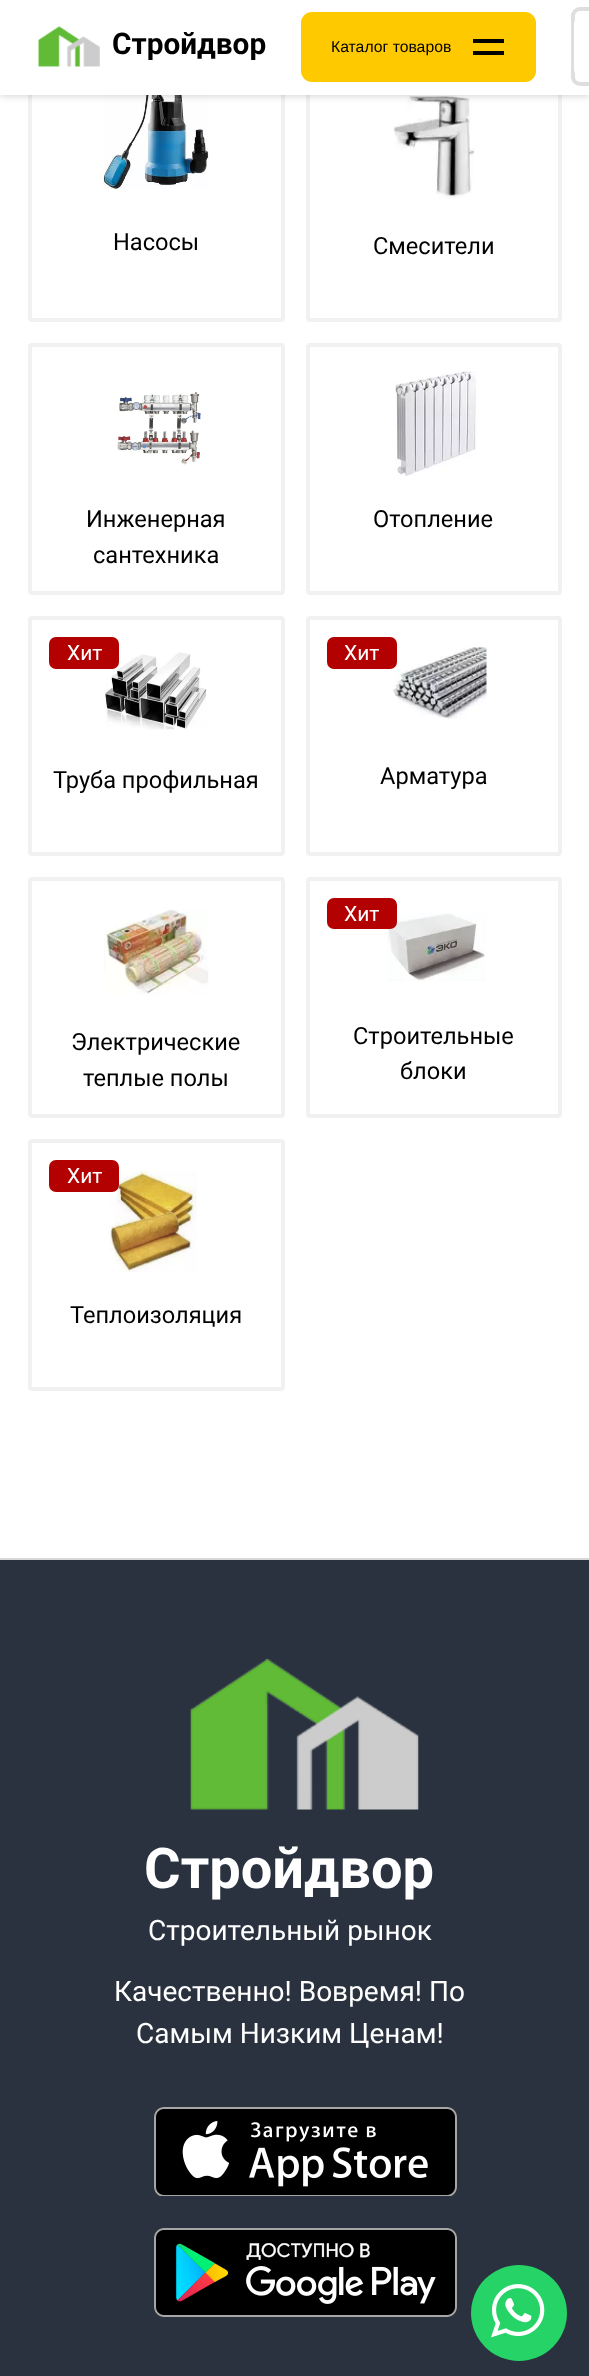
(async () => {
    const canvas = document.querySelector("canvas");
    canvas.width = 589;
    canvas.height = 2376;
    const context = canvas.getContext("2d");
    context.miterLimit = 4;
    context.fontKerning = "normal";
    function write(s, x, y, font, color) {
        context.font = font;
        context.fillStyle = color;
        context.fillText(s, x, y);
    }
    function block(x, y, w, h, color) {
        context.fillStyle = color;
        context.fillRect(x, y, w, h);
    }
    function card(x, y, w, h, r, color) {
        context.fillStyle = color;
        context.beginPath();
        context.roundRect(x, y, w, h, r);
        context.fill();
    }
    async function photo(src, x, y, w, h) {
        const img = new Image();
        img.src = src;
        await img.decode();
        context.drawImage(img, x, y, w, h);
    }

    block(0, 0, 589, 2376, "rgb(255, 255, 255)");
    context.beginPath();
    context.roundRect(30, 55, 253, 265, 2);
    context.strokeStyle = "rgb(241, 241, 241)";
    context.lineWidth = 4;
    context.stroke();
    await photo("media/2.png", 103, 95, 106, 94);
    context.beginPath();
    context.roundRect(308, 55, 252, 265, 2);
    context.stroke();
    await photo("media/3.png", 394, 95, 80, 104);
    context.fillStyle = "rgba(0, 0, 0, 0.21)";
    context.filter = "blur(4.5px)";
    context.beginPath();
    context.rect(0, 0, 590, 95);
    context.fill();
    context.filter = "none";
    block(0, 0, 589, 95, "rgb(255, 255, 255)");
    await photo("media/1.png", 38, 26, 62, 41);
    write("Стройдвор", 112, 54, "bold 29.75px Roboto", "rgb(0, 0, 0)");
    card(301, 12, 235, 70, 11, "rgb(255, 201, 0)");
    write("Каталог товаров", 331, 52, "15.75px Liberation Sans", "rgb(0, 0, 0)");
    block(473, 39, 31, 4, "rgb(0, 0, 0)");
    block(473, 51, 31, 4, "rgb(0, 0, 0)");
    context.beginPath();
    context.roundRect(573, 9, 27, 75, 7);
    context.strokeStyle = "rgb(222, 222, 222)";
    context.stroke();
    context.fillStyle = "rgb(255, 255, 255)";
    context.beginPath();
    context.moveTo(588, 13);
    context.lineTo(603, 13);
    context.bezierCurveTo(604, 13, 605, 14, 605, 15);
    context.lineTo(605, 78);
    context.bezierCurveTo(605, 79, 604, 80, 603, 80);
    context.lineTo(588, 80);
    context.bezierCurveTo(581.5, 80, 576, 74.5, 576, 68);
    context.lineTo(576, 25);
    context.bezierCurveTo(576, 18.5, 581.5, 13, 588, 13);
    context.closePath();
    context.fill();
    context.strokeStyle = "rgb(255, 255, 255)";
    context.stroke();
    write("Насосы", 113, 250, "23.6px Roboto", "rgb(0, 0, 0)");
    write("Смесители", 373, 254, "23.6px Roboto", "rgb(0, 0, 0)");
    context.beginPath();
    context.roundRect(30, 345, 253, 248, 2);
    context.strokeStyle = "rgb(241, 241, 241)";
    context.stroke();
    await photo("media/4.png", 117, 391, 84, 74);
    write("Инженерная", 86, 527, "23.6px Roboto", "rgb(0, 0, 0)");
    write("сантехника", 93, 563, "23.6px Roboto", "rgb(0, 0, 0)");
    context.beginPath();
    context.roundRect(308, 345, 252, 248, 2);
    context.stroke();
    await photo("media/5.png", 395, 371, 82, 105);
    write("Отопление", 373, 527, "23.6px Roboto", "rgb(0, 0, 0)");
    context.beginPath();
    context.roundRect(30, 618, 253, 236, 2);
    context.stroke();
    await photo("media/6.png", 105, 652, 102, 78);
    card(49, 637, 70, 32, 7, "rgb(179, 0, 0)");
    write("Хит", 67, 660, "21px Roboto", "rgb(255, 255, 255)");
    write("Труба профильная", 53, 788, "23.6px Roboto", "rgb(0, 0, 0)");
    context.beginPath();
    context.roundRect(308, 618, 252, 236, 2);
    context.stroke();
    await photo("media/7.png", 390, 647, 97, 72);
    card(327, 637, 70, 32, 7, "rgb(179, 0, 0)");
    write("Хит", 344, 660, "21px Roboto", "rgb(255, 255, 255)");
    write("Арматура", 380, 784, "23.6px Roboto", "rgb(0, 0, 0)");
    context.beginPath();
    context.roundRect(30, 879, 253, 237, 2);
    context.stroke();
    await photo("media/8.png", 104, 909, 105, 86);
    write("Электрические", 71, 1050, "23.6px Roboto", "rgb(0, 0, 0)");
    write("теплые полы", 83, 1086, "23.6px Roboto", "rgb(0, 0, 0)");
    context.beginPath();
    context.roundRect(308, 879, 252, 237, 2);
    context.stroke();
    await photo("media/9.png", 387, 913, 99, 68);
    card(327, 898, 70, 31, 7, "rgb(179, 0, 0)");
    write("Хит", 344, 921, "21px Roboto", "rgb(255, 255, 255)");
    write("Строительные", 353, 1044, "23.6px Roboto", "rgb(0, 0, 0)");
    write("блоки", 400, 1079, "23.6px Roboto", "rgb(0, 0, 0)");
    context.beginPath();
    context.roundRect(30, 1141, 253, 248, 2);
    context.stroke();
    await photo("media/10.png", 109, 1171, 88, 101);
    card(49, 1160, 70, 32, 7, "rgb(179, 0, 0)");
    write("Хит", 67, 1183, "21px Roboto", "rgb(255, 255, 255)");
    write("Теплоизоляция", 70, 1323, "23.6px Roboto", "rgb(0, 0, 0)");
    block(0, 1560, 589, 816, "rgb(43, 50, 63)");
    block(0, 1558, 589, 2, "rgb(215, 215, 215)");
    await photo("media/11.png", 190, 1659, 229, 151);
    write("Стройдвор", 144, 1888, "bold 56px Roboto", "rgb(255, 255, 255)");
    write("Строительный рынок", 148, 1940, "28px Roboto", "rgb(255, 255, 255)");
    write("Качественно! Вовремя! По", 114, 2001, "28px Roboto", "rgb(255, 255, 255)");
    write("Самым Низким Ценам!", 136, 2043, "28px Roboto", "rgb(255, 255, 255)");
    await photo("media/12.png", 154, 2107, 303, 89);
    await photo("media/13.png", 154, 2228, 303, 89);
    context.fillStyle = "rgb(37, 211, 102)";
    context.beginPath();
    context.arc(519, 2313, 48, 0, Math.PI * 2);
    context.fill();
    await photo("media/14.png", 491, 2284, 54, 54);
})();
